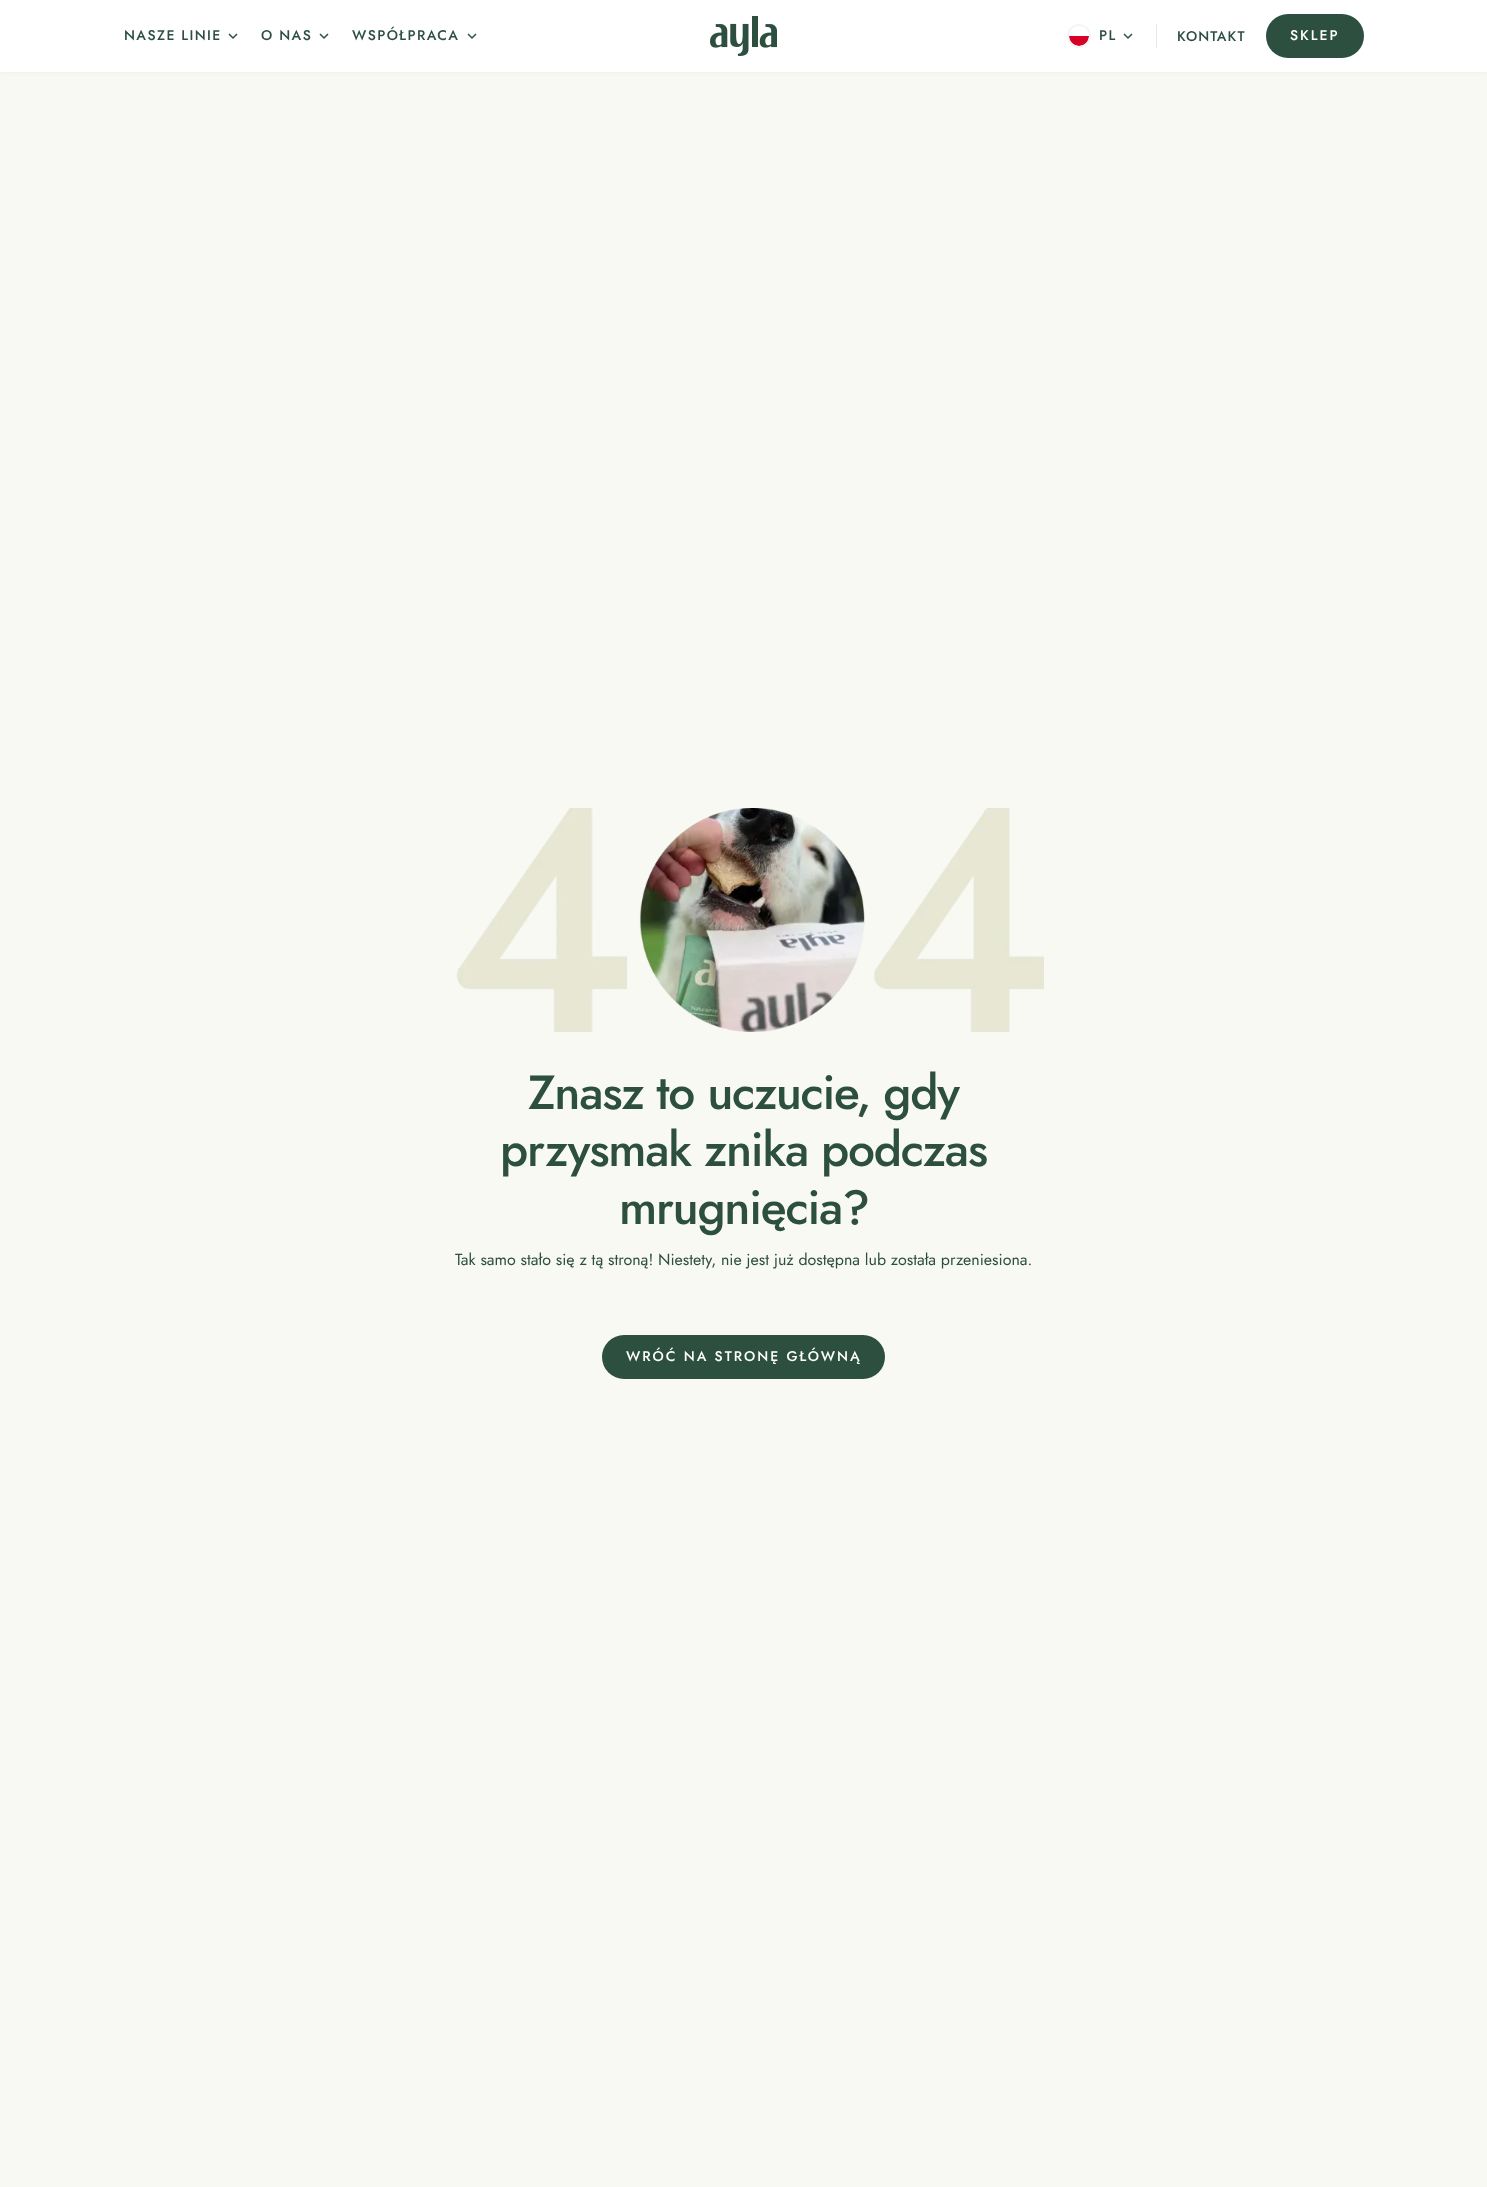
(async () => {
    const canvas = document.querySelector("canvas");
    canvas.width = 1487;
    canvas.height = 2187;
    const context = canvas.getContext("2d");
    context.miterLimit = 4;
    context.fontKerning = "normal";
    function write(s, x, y, font, color) {
        context.font = font;
        context.fillStyle = color;
        context.fillText(s, x, y);
    }
    function block(x, y, w, h, color) {
        context.fillStyle = color;
        context.fillRect(x, y, w, h);
    }
    function card(x, y, w, h, r, color) {
        context.fillStyle = color;
        context.beginPath();
        context.roundRect(x, y, w, h, r);
        context.fill();
    }
    async function photo(src, x, y, w, h) {
        const img = new Image();
        img.src = src;
        await img.decode();
        context.drawImage(img, x, y, w, h);
    }

    block(0, 0, 1487, 2187, "rgb(249, 249, 244)");
    context.fillStyle = "rgba(45, 79, 64, 0.05)";
    context.filter = "blur(2px)";
    context.beginPath();
    context.rect(0, 1, 1487, 72);
    context.fill();
    context.filter = "none";
    block(0, 0, 1487, 72, "rgb(255, 255, 255)");
    context.letterSpacing = "1.4px";
    write("NASZE LINIE", 124, 40, "500 14px Jost", "rgb(45, 79, 64)");
    context.beginPath();
    context.moveTo(229, 34);
    context.lineTo(233, 38);
    context.lineTo(237, 34);
    context.strokeStyle = "rgb(45, 79, 64)";
    context.lineWidth = 1.5;
    context.stroke();
    write("O NAS", 261, 40, "500 14px Jost", "rgb(45, 79, 64)");
    context.beginPath();
    context.moveTo(320, 34);
    context.lineTo(324, 38);
    context.lineTo(328, 34);
    context.stroke();
    write("WSPÓŁPRACA", 352, 40, "500 14px Jost", "rgb(45, 79, 64)");
    context.beginPath();
    context.moveTo(468, 34);
    context.lineTo(472, 38);
    context.lineTo(476, 34);
    context.stroke();
    await photo("media/1.png", 710, 16, 67, 40);
    context.beginPath();
    context.arc(1079, 36, 11, 0, Math.PI * 2);
    context.strokeStyle = "rgb(242, 247, 244)";
    context.lineWidth = 2;
    context.stroke();
    await photo("media/2.png", 1069, 36, 20, 10);
    write("PL", 1099, 40, "500 14px Jost", "rgb(45, 79, 64)");
    context.beginPath();
    context.moveTo(1124, 34);
    context.lineTo(1128, 38);
    context.lineTo(1132, 34);
    context.strokeStyle = "rgb(45, 79, 64)";
    context.lineWidth = 1.5;
    context.stroke();
    block(1156, 24, 1, 24, "rgb(224, 235, 226)");
    context.letterSpacing = "1px";
    write("KONTAKT", 1177, 41, "500 14px Jost", "rgb(45, 79, 64)");
    card(1266, 14, 98, 44, 22, "rgb(45, 79, 64)");
    context.letterSpacing = "2px";
    write("SKLEP", 1290, 40, "500 14px Jost", "rgb(255, 255, 255)");
    await photo("media/3.png", 456, 808, 588, 224);
    context.letterSpacing = "-1.25px";
    write("Znasz to uczucie, gdy", 528, 1109, "500 48px Jost", "rgb(45, 79, 64)");
    write("przysmak znika podczas", 500, 1166, "500 48px Jost", "rgb(45, 79, 64)");
    write("mrugnięcia?", 619, 1224, "500 48px Jost", "rgb(45, 79, 64)");
    context.letterSpacing = "0px";
    write("Tak samo stało się z tą stroną! Niestety, nie jest już dostępna lub została przeniesiona.", 455, 1265, "16px Jost", "rgb(45, 79, 64)");
    card(602, 1335, 283, 44, 22, "rgb(45, 79, 64)");
    context.letterSpacing = "2px";
    write("WRÓĆ NA STRONĘ GŁÓWNĄ", 626, 1361, "500 14px Jost", "rgb(255, 255, 255)");
})();
